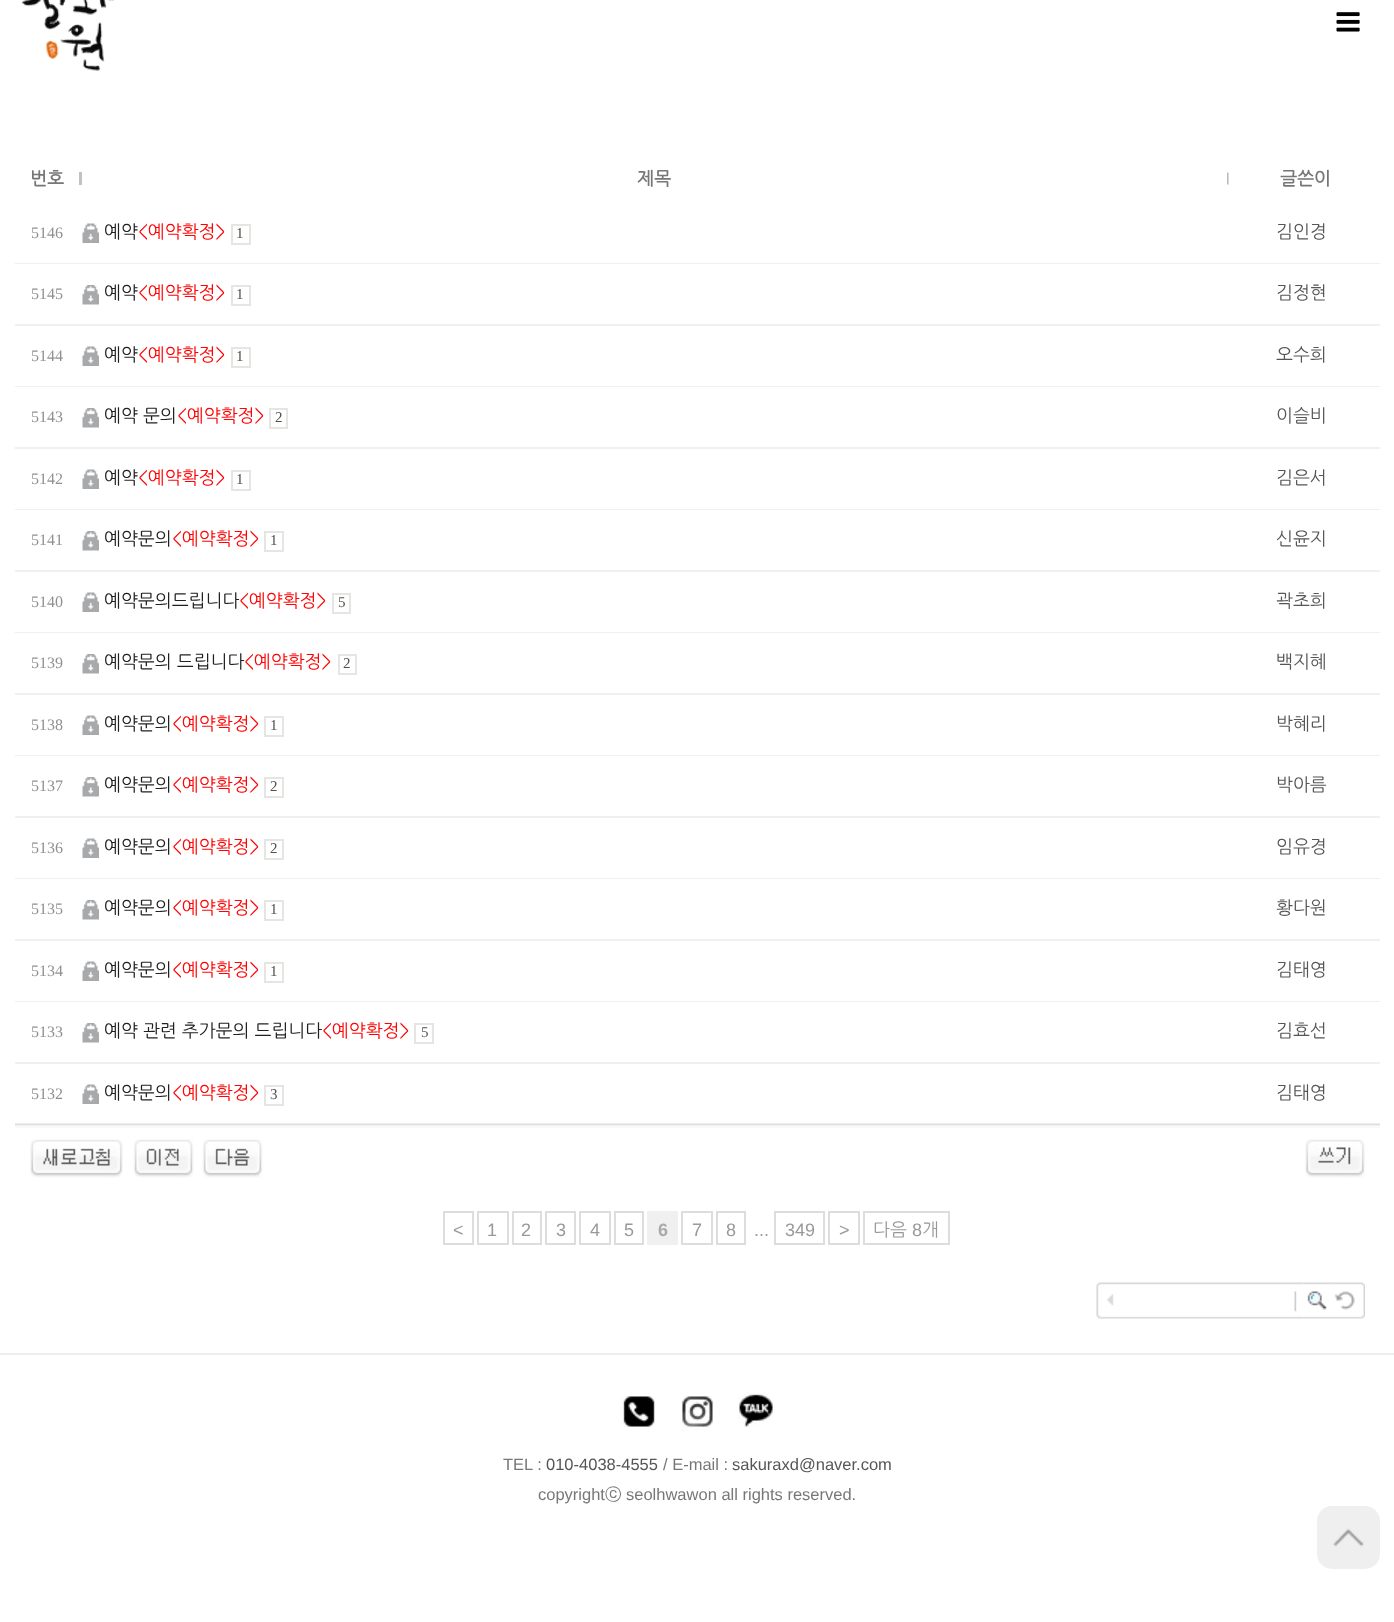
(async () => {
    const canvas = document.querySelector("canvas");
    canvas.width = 1394;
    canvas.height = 1622;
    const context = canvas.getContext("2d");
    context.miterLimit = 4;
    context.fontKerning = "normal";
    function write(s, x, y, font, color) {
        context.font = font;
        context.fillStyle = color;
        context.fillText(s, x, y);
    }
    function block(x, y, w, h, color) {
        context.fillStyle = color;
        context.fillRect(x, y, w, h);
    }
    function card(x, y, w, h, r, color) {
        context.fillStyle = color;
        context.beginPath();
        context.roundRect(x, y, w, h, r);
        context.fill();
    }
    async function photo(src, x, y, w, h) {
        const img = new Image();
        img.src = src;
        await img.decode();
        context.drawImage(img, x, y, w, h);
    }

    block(0, 0, 1394, 1622, "rgb(255, 255, 255)");
    await photo("media/1.png", 21, 0, 93, 71);
    await photo("media/2.png", 1336, 12, 24, 20);
    write("번호", 30, 185, "bold 18px NanumGothic", "rgb(119, 119, 119)");
    block(79, 172, 3, 13, "rgb(194, 194, 194)");
    write("제목", 637, 185, "bold 18px NanumGothic", "rgb(119, 119, 119)");
    await photo("media/3.png", 1227, 172, 2, 13);
    write("글쓴이", 1280, 185, "bold 18px NanumGothic", "rgb(119, 119, 119)");
    write("5146", 31, 238, "16px Liberation Serif", "rgb(144, 144, 144)");
    await photo("media/4.png", 82, 223, 17, 20);
    write("예약", 104, 238, "18px NanumGothic", "rgb(32, 32, 32)");
    write("<예약확정>", 138, 238, "18px NanumGothic", "rgb(254, 3, 3)");
    context.strokeStyle = "rgb(229, 229, 225)";
    context.lineWidth = 2;
    context.strokeRect(232, 225, 18, 19);
    write("1", 236, 238, "15px Liberation Serif", "rgb(80, 80, 80)");
    write("김인경", 1276, 238, "18px NanumGothic", "rgb(86, 86, 86)");
    block(15, 263, 1365, 1, "rgb(240, 240, 240)");
    write("5145", 31, 299, "16px Liberation Serif", "rgb(144, 144, 144)");
    await photo("media/5.png", 82, 285, 17, 20);
    write("예약", 104, 299, "18px NanumGothic", "rgb(32, 32, 32)");
    write("<예약확정>", 138, 299, "18px NanumGothic", "rgb(254, 3, 3)");
    context.strokeRect(232, 286, 18, 19);
    write("1", 236, 299, "15px Liberation Serif", "rgb(80, 80, 80)");
    write("김정현", 1276, 299, "18px NanumGothic", "rgb(86, 86, 86)");
    block(15, 324, 1365, 2, "rgb(240, 240, 240)");
    write("5144", 31, 361, "16px Liberation Serif", "rgb(144, 144, 144)");
    await photo("media/4.png", 82, 346, 17, 20);
    write("예약", 104, 361, "18px NanumGothic", "rgb(32, 32, 32)");
    write("<예약확정>", 138, 361, "18px NanumGothic", "rgb(254, 3, 3)");
    context.strokeRect(232, 348, 18, 19);
    write("1", 236, 361, "15px Liberation Serif", "rgb(80, 80, 80)");
    write("오수희", 1276, 361, "18px NanumGothic", "rgb(86, 86, 86)");
    block(15, 386, 1365, 1, "rgb(240, 240, 240)");
    write("5143", 31, 422, "16px Liberation Serif", "rgb(144, 144, 144)");
    await photo("media/5.png", 82, 408, 17, 20);
    write("예약 문의", 104, 422, "18px NanumGothic", "rgb(32, 32, 32)");
    write("<예약확정>", 177, 422, "18px NanumGothic", "rgb(254, 3, 3)");
    context.strokeRect(270, 409, 17, 19);
    write("2", 275, 422, "15px Liberation Serif", "rgb(80, 80, 80)");
    write("이슬비", 1276, 422, "18px NanumGothic", "rgb(86, 86, 86)");
    block(15, 447, 1365, 2, "rgb(240, 240, 240)");
    write("5142", 31, 484, "16px Liberation Serif", "rgb(144, 144, 144)");
    await photo("media/4.png", 82, 469, 17, 20);
    write("예약", 104, 484, "18px NanumGothic", "rgb(32, 32, 32)");
    write("<예약확정>", 138, 484, "18px NanumGothic", "rgb(254, 3, 3)");
    context.strokeRect(232, 471, 18, 19);
    write("1", 236, 484, "15px Liberation Serif", "rgb(80, 80, 80)");
    write("김은서", 1276, 484, "18px NanumGothic", "rgb(86, 86, 86)");
    block(15, 509, 1365, 1, "rgb(240, 240, 240)");
    write("5141", 31, 545, "16px Liberation Serif", "rgb(144, 144, 144)");
    await photo("media/5.png", 82, 531, 17, 20);
    write("예약문의", 104, 545, "18px NanumGothic", "rgb(32, 32, 32)");
    write("<예약확정>", 172, 545, "18px NanumGothic", "rgb(254, 3, 3)");
    context.strokeRect(265, 532, 18, 19);
    write("1", 270, 545, "15px Liberation Serif", "rgb(80, 80, 80)");
    write("신윤지", 1276, 545, "18px NanumGothic", "rgb(86, 86, 86)");
    block(15, 570, 1365, 2, "rgb(240, 240, 240)");
    write("5140", 31, 607, "16px Liberation Serif", "rgb(144, 144, 144)");
    await photo("media/4.png", 82, 592, 17, 20);
    write("예약문의드립니다", 104, 607, "18px NanumGothic", "rgb(32, 32, 32)");
    write("<예약확정>", 239, 607, "18px NanumGothic", "rgb(254, 3, 3)");
    context.strokeRect(333, 594, 17, 19);
    write("5", 338, 607, "15px Liberation Serif", "rgb(80, 80, 80)");
    write("곽초희", 1276, 607, "18px NanumGothic", "rgb(86, 86, 86)");
    block(15, 632, 1365, 1, "rgb(240, 240, 240)");
    write("5139", 31, 668, "16px Liberation Serif", "rgb(144, 144, 144)");
    await photo("media/5.png", 82, 654, 17, 20);
    write("예약문의 드립니다", 104, 668, "18px NanumGothic", "rgb(32, 32, 32)");
    write("<예약확정>", 244, 668, "18px NanumGothic", "rgb(254, 3, 3)");
    context.strokeRect(339, 655, 17, 19);
    write("2", 343, 668, "15px Liberation Serif", "rgb(80, 80, 80)");
    write("백지혜", 1276, 668, "18px NanumGothic", "rgb(86, 86, 86)");
    block(15, 693, 1365, 2, "rgb(240, 240, 240)");
    write("5138", 31, 730, "16px Liberation Serif", "rgb(144, 144, 144)");
    await photo("media/4.png", 82, 715, 17, 20);
    write("예약문의", 104, 730, "18px NanumGothic", "rgb(32, 32, 32)");
    write("<예약확정>", 172, 730, "18px NanumGothic", "rgb(254, 3, 3)");
    context.strokeRect(265, 717, 18, 19);
    write("1", 270, 730, "15px Liberation Serif", "rgb(80, 80, 80)");
    write("박혜리", 1276, 730, "18px NanumGothic", "rgb(86, 86, 86)");
    block(15, 755, 1365, 1, "rgb(240, 240, 240)");
    write("5137", 31, 791, "16px Liberation Serif", "rgb(144, 144, 144)");
    await photo("media/5.png", 82, 777, 17, 20);
    write("예약문의", 104, 791, "18px NanumGothic", "rgb(32, 32, 32)");
    write("<예약확정>", 172, 791, "18px NanumGothic", "rgb(254, 3, 3)");
    context.strokeRect(265, 778, 18, 19);
    write("2", 270, 791, "15px Liberation Serif", "rgb(80, 80, 80)");
    write("박아름", 1276, 791, "18px NanumGothic", "rgb(86, 86, 86)");
    block(15, 816, 1365, 2, "rgb(240, 240, 240)");
    write("5136", 31, 853, "16px Liberation Serif", "rgb(144, 144, 144)");
    await photo("media/4.png", 82, 838, 17, 20);
    write("예약문의", 104, 853, "18px NanumGothic", "rgb(32, 32, 32)");
    write("<예약확정>", 172, 853, "18px NanumGothic", "rgb(254, 3, 3)");
    context.strokeRect(265, 840, 18, 19);
    write("2", 270, 853, "15px Liberation Serif", "rgb(80, 80, 80)");
    write("임유경", 1276, 853, "18px NanumGothic", "rgb(86, 86, 86)");
    block(15, 878, 1365, 1, "rgb(240, 240, 240)");
    write("5135", 31, 914, "16px Liberation Serif", "rgb(144, 144, 144)");
    await photo("media/5.png", 82, 900, 17, 20);
    write("예약문의", 104, 914, "18px NanumGothic", "rgb(32, 32, 32)");
    write("<예약확정>", 172, 914, "18px NanumGothic", "rgb(254, 3, 3)");
    context.strokeRect(265, 901, 18, 19);
    write("1", 270, 914, "15px Liberation Serif", "rgb(80, 80, 80)");
    write("황다원", 1276, 914, "18px NanumGothic", "rgb(86, 86, 86)");
    block(15, 939, 1365, 2, "rgb(240, 240, 240)");
    write("5134", 31, 976, "16px Liberation Serif", "rgb(144, 144, 144)");
    await photo("media/4.png", 82, 961, 17, 20);
    write("예약문의", 104, 976, "18px NanumGothic", "rgb(32, 32, 32)");
    write("<예약확정>", 172, 976, "18px NanumGothic", "rgb(254, 3, 3)");
    context.strokeRect(265, 963, 18, 19);
    write("1", 270, 976, "15px Liberation Serif", "rgb(80, 80, 80)");
    write("김태영", 1276, 976, "18px NanumGothic", "rgb(86, 86, 86)");
    block(15, 1001, 1365, 1, "rgb(240, 240, 240)");
    write("5133", 31, 1037, "16px Liberation Serif", "rgb(144, 144, 144)");
    await photo("media/5.png", 82, 1023, 17, 20);
    write("예약 관련 추가문의 드립니다", 104, 1037, "18px NanumGothic", "rgb(32, 32, 32)");
    write("<예약확정>", 322, 1037, "18px NanumGothic", "rgb(254, 3, 3)");
    context.strokeRect(415, 1024, 18, 19);
    write("5", 421, 1037, "15px Liberation Serif", "rgb(80, 80, 80)");
    write("김효선", 1276, 1037, "18px NanumGothic", "rgb(86, 86, 86)");
    block(15, 1062, 1365, 2, "rgb(240, 240, 240)");
    write("5132", 31, 1099, "16px Liberation Serif", "rgb(144, 144, 144)");
    await photo("media/4.png", 82, 1084, 17, 20);
    write("예약문의", 104, 1099, "18px NanumGothic", "rgb(32, 32, 32)");
    write("<예약확정>", 172, 1099, "18px NanumGothic", "rgb(254, 3, 3)");
    context.strokeRect(265, 1086, 18, 19);
    write("3", 270, 1099, "15px Liberation Serif", "rgb(80, 80, 80)");
    write("김태영", 1276, 1099, "18px NanumGothic", "rgb(86, 86, 86)");
    await photo("media/6.png", 15, 1123, 1365, 5);
    await photo("media/7.png", 30, 1139, 93, 39);
    await photo("media/8.png", 133, 1139, 61, 39);
    await photo("media/9.png", 202, 1139, 61, 39);
    await photo("media/10.png", 1305, 1139, 60, 39);
    context.strokeStyle = "rgb(221, 221, 221)";
    context.strokeRect(444, 1212, 29, 32);
    write("<", 453, 1236, "18px Liberation Sans", "rgb(153, 153, 153)");
    context.strokeRect(478, 1212, 30, 32);
    write("1", 487, 1236, "18px Liberation Sans", "rgb(153, 153, 153)");
    context.strokeRect(513, 1212, 28, 32);
    write("2", 521, 1236, "18px Liberation Sans", "rgb(153, 153, 153)");
    context.strokeRect(546, 1212, 29, 32);
    write("3", 556, 1236, "18px Liberation Sans", "rgb(153, 153, 153)");
    context.strokeRect(580, 1212, 30, 32);
    write("4", 590, 1236, "18px Liberation Sans", "rgb(153, 153, 153)");
    context.strokeRect(615, 1212, 28, 32);
    write("5", 624, 1236, "18px Liberation Sans", "rgb(153, 153, 153)");
    block(647, 1211, 31, 34, "rgb(240, 240, 240)");
    write("6", 658, 1236, "bold 18px Liberation Sans", "rgb(170, 170, 170)");
    context.strokeRect(682, 1212, 30, 32);
    write("7", 692, 1236, "18px Liberation Sans", "rgb(153, 153, 153)");
    context.strokeRect(717, 1212, 28, 32);
    write("8", 726, 1236, "18px Liberation Sans", "rgb(153, 153, 153)");
    write("...", 754, 1236, "18px Liberation Sans", "rgb(153, 153, 153)");
    context.strokeRect(775, 1212, 49, 32);
    write("349", 785, 1236, "18px Liberation Sans", "rgb(153, 153, 153)");
    context.strokeRect(829, 1212, 30, 32);
    write(">", 839, 1236, "18px Liberation Sans", "rgb(153, 153, 153)");
    context.strokeRect(864, 1212, 85, 32);
    write("다음", 873, 1236, "18px NanumGothic", "rgb(153, 153, 153)");
    write("8", 912, 1236, "18px Liberation Sans", "rgb(153, 153, 153)");
    write("개", 922, 1236, "18px NanumGothic", "rgb(153, 153, 153)");
    await photo("media/11.png", 1096, 1282, 23, 37);
    await photo("media/12.png", 1119, 1282, 171, 37);
    await photo("media/13.png", 1290, 1282, 14, 37);
    await photo("media/14.png", 1303, 1282, 28, 37);
    await photo("media/15.png", 1330, 1282, 35, 37);
    card(1317, 1506, 63, 63, 15, "rgb(239, 239, 239)");
    await photo("media/16.png", 1333, 1528, 31, 19);
    block(0, 1353, 1394, 2, "rgb(238, 238, 238)");
    await photo("media/17.png", 620, 1396, 35, 31);
    await photo("media/18.png", 681, 1396, 32, 35);
    await photo("media/19.png", 737, 1392, 36, 35);
    write("TEL :", 503, 1470, "16.5px Liberation Sans", "rgb(119, 119, 119)");
    write("010-4038-4555", 546, 1470, "16.5px Liberation Sans", "rgb(86, 86, 86)");
    write("/ E-mail :", 663, 1470, "16.5px Liberation Sans", "rgb(119, 119, 119)");
    write("sakuraxd@naver.com", 732, 1470, "16.5px Liberation Sans", "rgb(86, 86, 86)");
    write("copyright", 538, 1500, "16.5px Liberation Sans", "rgb(119, 119, 119)");
    write("ⓒ", 605, 1500, "500 16.5px WenQuanYi Zen Hei", "rgb(119, 119, 119)");
    write("seolhwawon all rights reserved.", 626, 1500, "16.5px Liberation Sans", "rgb(119, 119, 119)");
})();
